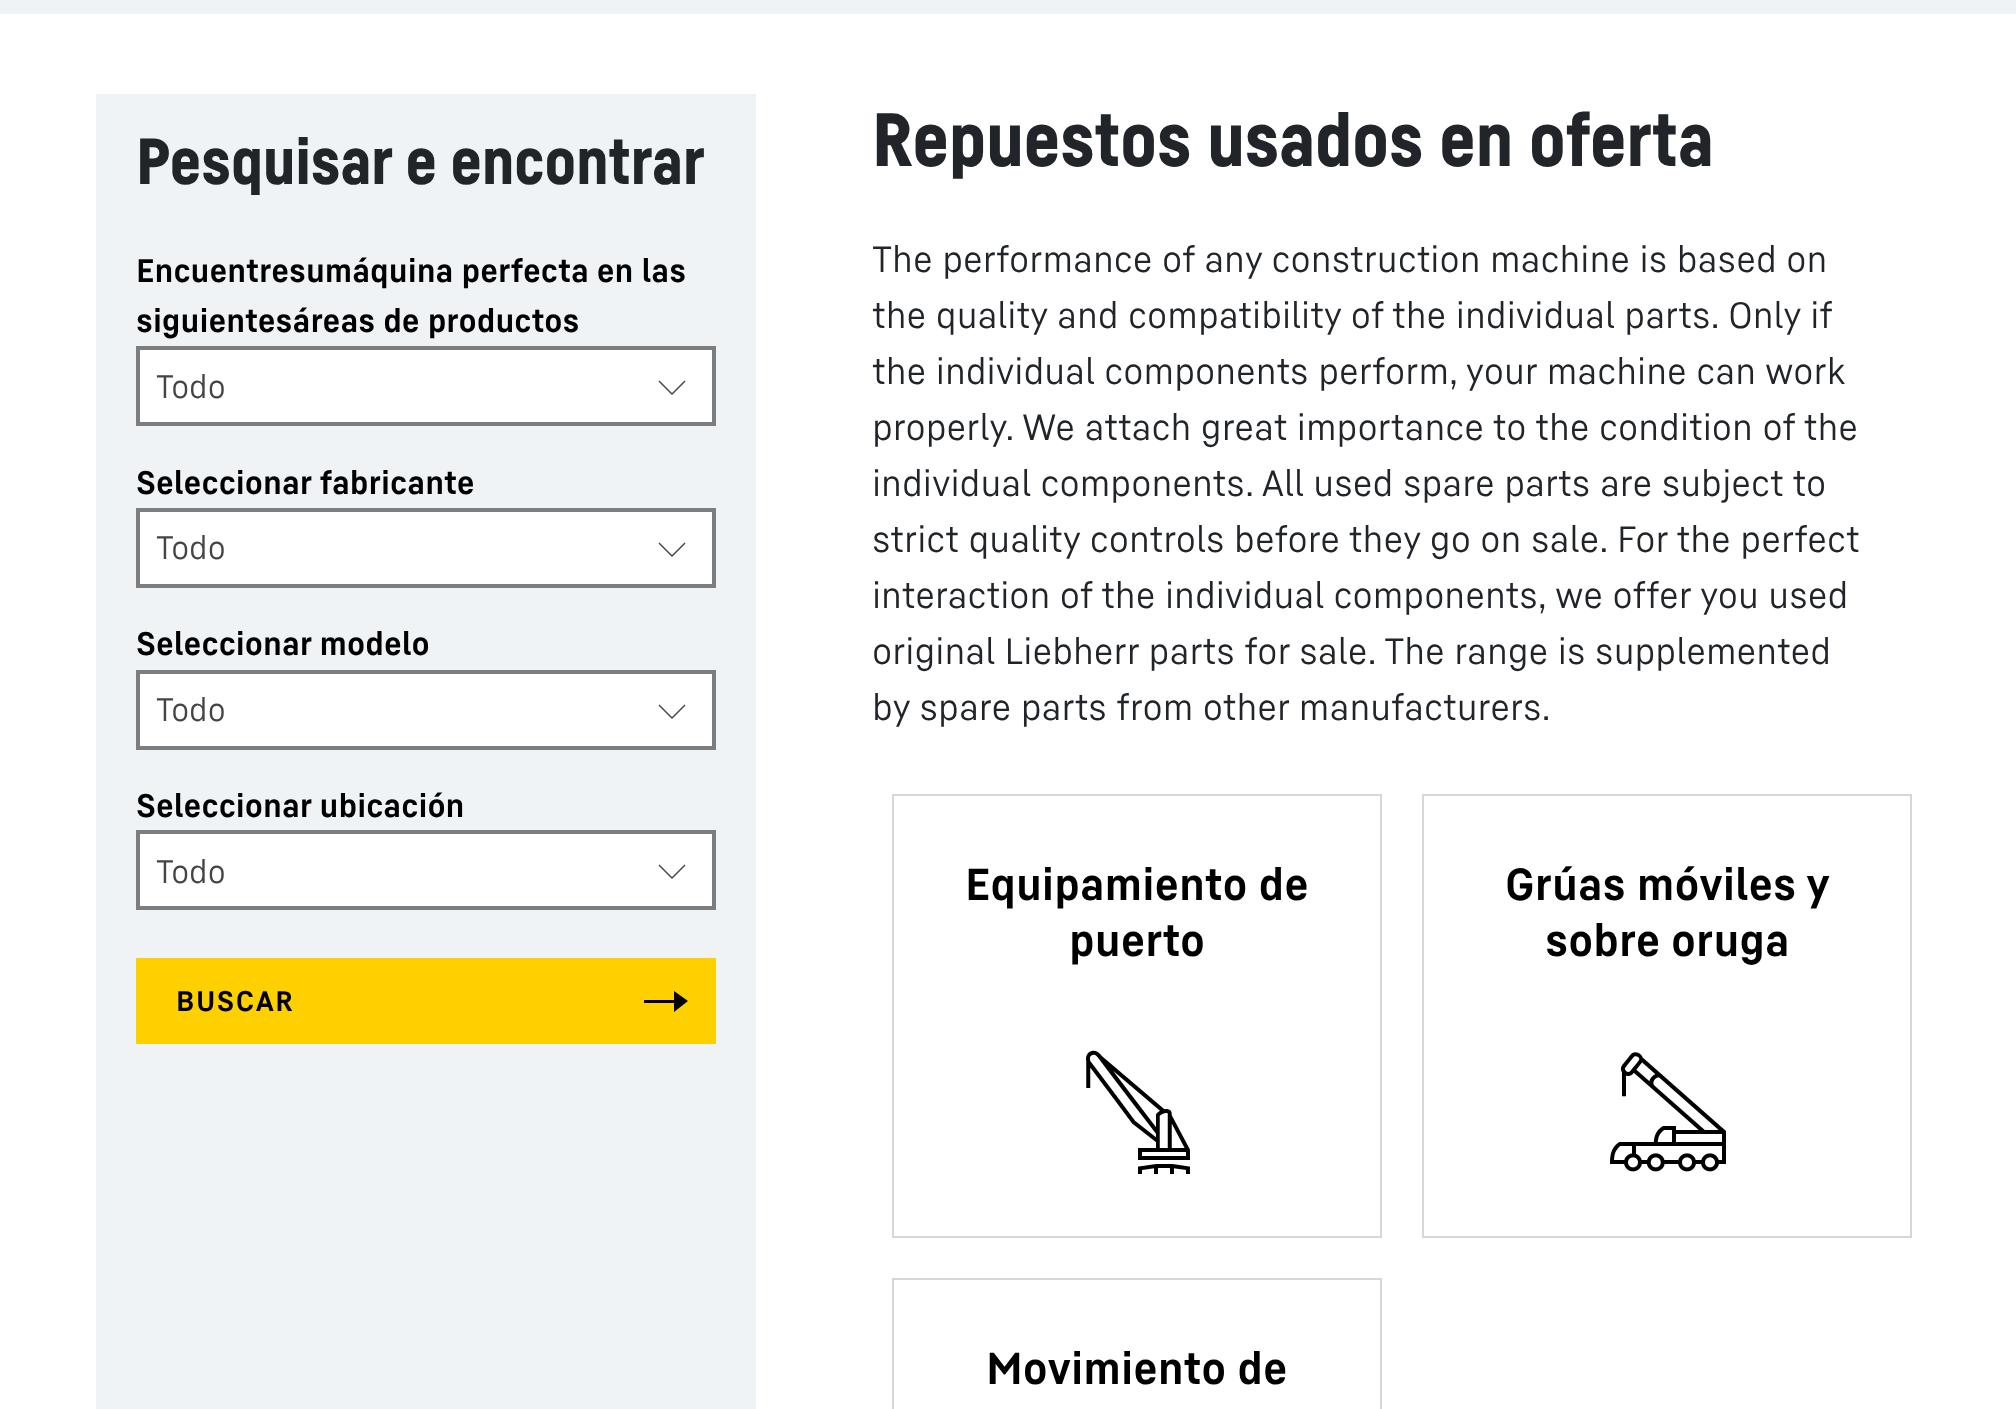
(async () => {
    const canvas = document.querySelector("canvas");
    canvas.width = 2016;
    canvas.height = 1409;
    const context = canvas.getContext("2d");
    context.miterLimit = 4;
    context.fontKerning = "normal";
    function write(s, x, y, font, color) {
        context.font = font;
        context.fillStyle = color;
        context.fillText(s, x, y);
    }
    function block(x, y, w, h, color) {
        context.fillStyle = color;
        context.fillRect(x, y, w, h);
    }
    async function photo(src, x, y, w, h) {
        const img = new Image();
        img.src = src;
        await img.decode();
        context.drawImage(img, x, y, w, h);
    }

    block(0, 0, 2016, 1409, "rgb(255, 255, 255)");
    block(0, 0, 2016, 14, "rgb(240, 243, 246)");
    block(96, 94, 660, 1315, "rgb(240, 243, 246)");
    write("Pesquisar e encontrar", 136, 184, "900 64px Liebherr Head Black", "rgb(33, 37, 41)");
    write("Encuentresumáquina perfecta en las", 136, 282, "bold 32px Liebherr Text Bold", "rgb(0, 0, 0)");
    write("siguientesáreas de productos", 136, 332, "bold 32px Liebherr Text Bold", "rgb(0, 0, 0)");
    context.fillStyle = "rgb(255, 255, 255)";
    context.beginPath();
    context.rect(138, 348, 576, 76);
    context.fill();
    context.strokeStyle = "rgb(124, 125, 127)";
    context.lineWidth = 4;
    context.stroke();
    write("Todo", 156, 398, "32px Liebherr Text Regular", "rgb(68, 68, 68)");
    context.beginPath();
    context.moveTo(672, 395);
    context.lineTo(658.5, 381.5);
    context.lineTo(659.5, 380.5);
    context.lineTo(672, 393);
    context.lineTo(684.5, 380.5);
    context.lineTo(685.5, 381.5);
    context.closePath();
    context.fill();
    write("Seleccionar fabricante", 136, 494, "bold 32px Liebherr Text Bold", "rgb(0, 0, 0)");
    context.fillStyle = "rgb(255, 255, 255)";
    context.beginPath();
    context.rect(138, 510, 576, 76);
    context.fill();
    context.stroke();
    write("Todo", 156, 559, "32px Liebherr Text Regular", "rgb(68, 68, 68)");
    context.beginPath();
    context.moveTo(672, 557);
    context.lineTo(658.5, 543.5);
    context.lineTo(659.5, 542.5);
    context.lineTo(672, 555);
    context.lineTo(684.5, 542.5);
    context.lineTo(685.5, 543.5);
    context.closePath();
    context.fill();
    write("Seleccionar modelo", 136, 655, "bold 32px Liebherr Text Bold", "rgb(0, 0, 0)");
    context.fillStyle = "rgb(255, 255, 255)";
    context.beginPath();
    context.rect(138, 672, 576, 76);
    context.fill();
    context.stroke();
    write("Todo", 156, 721, "32px Liebherr Text Regular", "rgb(68, 68, 68)");
    context.beginPath();
    context.moveTo(672, 719);
    context.lineTo(658.5, 705.5);
    context.lineTo(659.5, 704.5);
    context.lineTo(672, 717);
    context.lineTo(684.5, 704.5);
    context.lineTo(685.5, 705.5);
    context.closePath();
    context.fill();
    write("Seleccionar ubicación", 136, 817, "bold 32px Liebherr Text Bold", "rgb(0, 0, 0)");
    context.fillStyle = "rgb(255, 255, 255)";
    context.beginPath();
    context.rect(138, 832, 576, 76);
    context.fill();
    context.stroke();
    write("Todo", 156, 883, "32px Liebherr Text Regular", "rgb(68, 68, 68)");
    context.beginPath();
    context.moveTo(672, 879);
    context.lineTo(658.5, 865.5);
    context.lineTo(659.5, 864.5);
    context.lineTo(672, 877);
    context.lineTo(684.5, 864.5);
    context.lineTo(685.5, 865.5);
    context.closePath();
    context.fill();
    block(136, 958, 580, 86, "rgb(255, 208, 0)");
    context.letterSpacing = "1.5px";
    write("BUSCAR", 176, 1011, "bold 28px Liebherr Text Bold", "rgb(0, 0, 0)");
    context.beginPath();
    context.moveTo(688, 1001);
    context.lineTo(674, 991);
    context.lineTo(674, 1000);
    context.lineTo(644, 1000);
    context.lineTo(644, 1003);
    context.lineTo(674, 1003);
    context.lineTo(674, 1012);
    context.closePath();
    context.fill();
    context.letterSpacing = "0px";
    write("Repuestos usados en oferta", 872, 166, "900 74.25px Liebherr Head Black", "rgb(33, 37, 41)");
    write("The performance of any construction machine is based on", 872, 272, "36px Liebherr Text Regular", "rgb(33, 37, 41)");
    write("the quality and compatibility of the individual parts. Only if", 872, 328, "36px Liebherr Text Regular", "rgb(33, 37, 41)");
    write("the individual components perform, your machine can work", 872, 384, "36px Liebherr Text Regular", "rgb(33, 37, 41)");
    write("properly. We attach great importance to the condition of the", 872, 440, "36px Liebherr Text Regular", "rgb(33, 37, 41)");
    write("individual components. All used spare parts are subject to", 872, 496, "36px Liebherr Text Regular", "rgb(33, 37, 41)");
    write("strict quality controls before they go on sale. For the perfect", 872, 552, "36px Liebherr Text Regular", "rgb(33, 37, 41)");
    write("interaction of the individual components, we offer you used", 872, 608, "36px Liebherr Text Regular", "rgb(33, 37, 41)");
    write("original Liebherr parts for sale. The range is supplemented", 872, 664, "36px Liebherr Text Regular", "rgb(33, 37, 41)");
    write("by spare parts from other manufacturers.", 872, 720, "36px Liebherr Text Regular", "rgb(33, 37, 41)");
    context.strokeStyle = "rgb(211, 216, 221)";
    context.lineWidth = 2;
    context.strokeRect(893, 795, 488, 442);
    write("Equipamiento de", 965, 900, "bold 44px Liebherr Text Bold", "rgb(0, 0, 0)");
    write("puerto", 1069, 956, "bold 44px Liebherr Text Bold", "rgb(0, 0, 0)");
    await photo("media/1.png", 1086, 1050, 104, 124);
    context.strokeRect(1423, 795, 488, 442);
    write("Grúas móviles y", 1505, 900, "bold 44px Liebherr Text Bold", "rgb(0, 0, 0)");
    write("sobre oruga", 1545, 956, "bold 44px Liebherr Text Bold", "rgb(0, 0, 0)");
    await photo("media/2.png", 1610, 1052, 116, 120);
    context.strokeRect(893, 1279, 488, 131);
    write("Movimiento de", 986, 1384, "bold 44px Liebherr Text Bold", "rgb(0, 0, 0)");
})();
